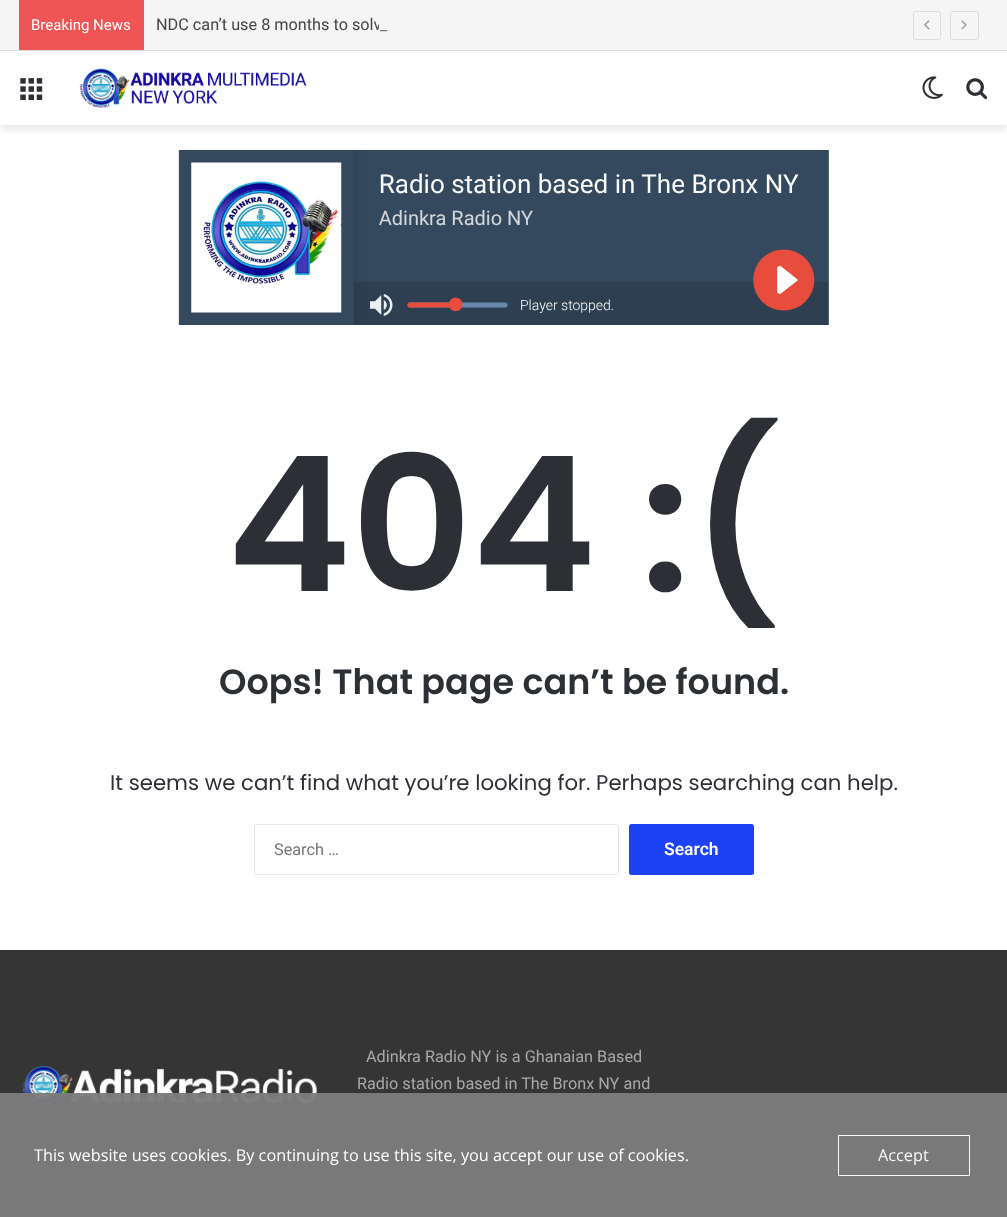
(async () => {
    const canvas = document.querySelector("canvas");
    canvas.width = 1007;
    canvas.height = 1217;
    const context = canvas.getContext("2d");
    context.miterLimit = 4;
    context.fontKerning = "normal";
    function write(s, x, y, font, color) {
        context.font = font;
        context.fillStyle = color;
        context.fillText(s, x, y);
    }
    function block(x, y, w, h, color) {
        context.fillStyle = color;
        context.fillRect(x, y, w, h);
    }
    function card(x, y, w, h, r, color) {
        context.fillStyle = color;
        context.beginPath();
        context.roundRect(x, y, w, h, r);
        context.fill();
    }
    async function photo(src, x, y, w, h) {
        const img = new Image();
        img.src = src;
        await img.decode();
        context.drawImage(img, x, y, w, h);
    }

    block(0, 0, 1007, 1217, "rgb(255, 255, 255)");
    context.save();
    context.beginPath();
    context.rect(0, 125, 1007, 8);
    context.clip();
    context.fillStyle = "rgba(0, 0, 0, 0.1)";
    context.filter = "blur(4.5px)";
    context.beginPath();
    context.rect(0, 55, 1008, 74);
    context.fill();
    context.filter = "none";
    context.restore();
    block(0, 0, 1007, 50, "rgb(245, 245, 245)");
    block(0, 50, 1007, 1, "rgb(221, 221, 221)");
    block(19, 0, 125, 50, "rgb(240, 85, 85)");
    write("Breaking News", 31, 30, "15px Roboto", "rgb(255, 255, 255)");
    write("NDC can’t use 8 months to solv", 156, 30, "16.25px Roboto", "rgb(68, 68, 68)");
    block(379, 21, 3, 7, "rgb(245, 245, 245)");
    write("_", 380, 30, "16.25px Roboto", "rgb(117, 117, 117)");
    context.beginPath();
    context.roundRect(913.5, 11.5, 27, 28, 2);
    context.strokeStyle = "rgb(221, 221, 221)";
    context.stroke();
    await photo("media/1.png", 924, 20, 6, 10);
    context.beginPath();
    context.roundRect(950.5, 11.5, 28, 28, 2);
    context.stroke();
    await photo("media/2.png", 961, 20, 6, 10);
    await photo("media/3.png", 20, 78, 23, 22);
    await photo("media/4.png", 79, 68, 228, 40);
    await photo("media/5.png", 922, 76, 21, 23);
    await photo("media/6.png", 966, 78, 22, 22);
    await photo("media/7.png", 178, 150, 651, 175);
    write("404 :(", 227, 591, "600 187.5px Poppins", "rgb(44, 47, 52)");
    write("Oops! That page can’t be found.", 219, 694, "600 35px Poppins", "rgb(44, 47, 52)");
    write("It seems we can’t find what you’re looking for. Perhaps searching can help.", 110, 790, "21.25px Poppins", "rgb(44, 47, 52)");
    context.beginPath();
    context.roundRect(254.5, 824.5, 364, 50, 2);
    context.strokeStyle = "rgb(230, 230, 230)";
    context.stroke();
    write("Search …", 274, 855, "16.25px Roboto", "rgb(117, 117, 117)");
    card(629, 824, 125, 51, 2.5, "rgb(29, 65, 244)");
    write("Search", 664, 855, "600 17.5px Roboto", "rgb(255, 255, 255)");
    block(0, 950, 1007, 267, "rgb(53, 53, 53)");
    await photo("media/8.png", 22, 1066, 295, 41);
    write("Adinkra Radio NY is a Ghanaian Based", 366, 1062, "16.25px Roboto", "rgb(169, 169, 169)");
    write("Radio station based in The Bronx NY and", 357, 1089, "16.25px Roboto", "rgb(169, 169, 169)");
    block(0, 1093, 1007, 124, "rgba(124, 124, 124, 0.97)");
    write("This website uses cookies. By continuing to use this site, you accept our use of cookies.", 34, 1161, "16.25px Open Sans", "rgb(255, 255, 255)");
    context.strokeStyle = "rgb(249, 249, 249)";
    context.strokeRect(838.5, 1135.5, 131, 40);
    write("Accept", 878, 1161, "16.25px Open Sans", "rgb(249, 249, 249)");
})();
